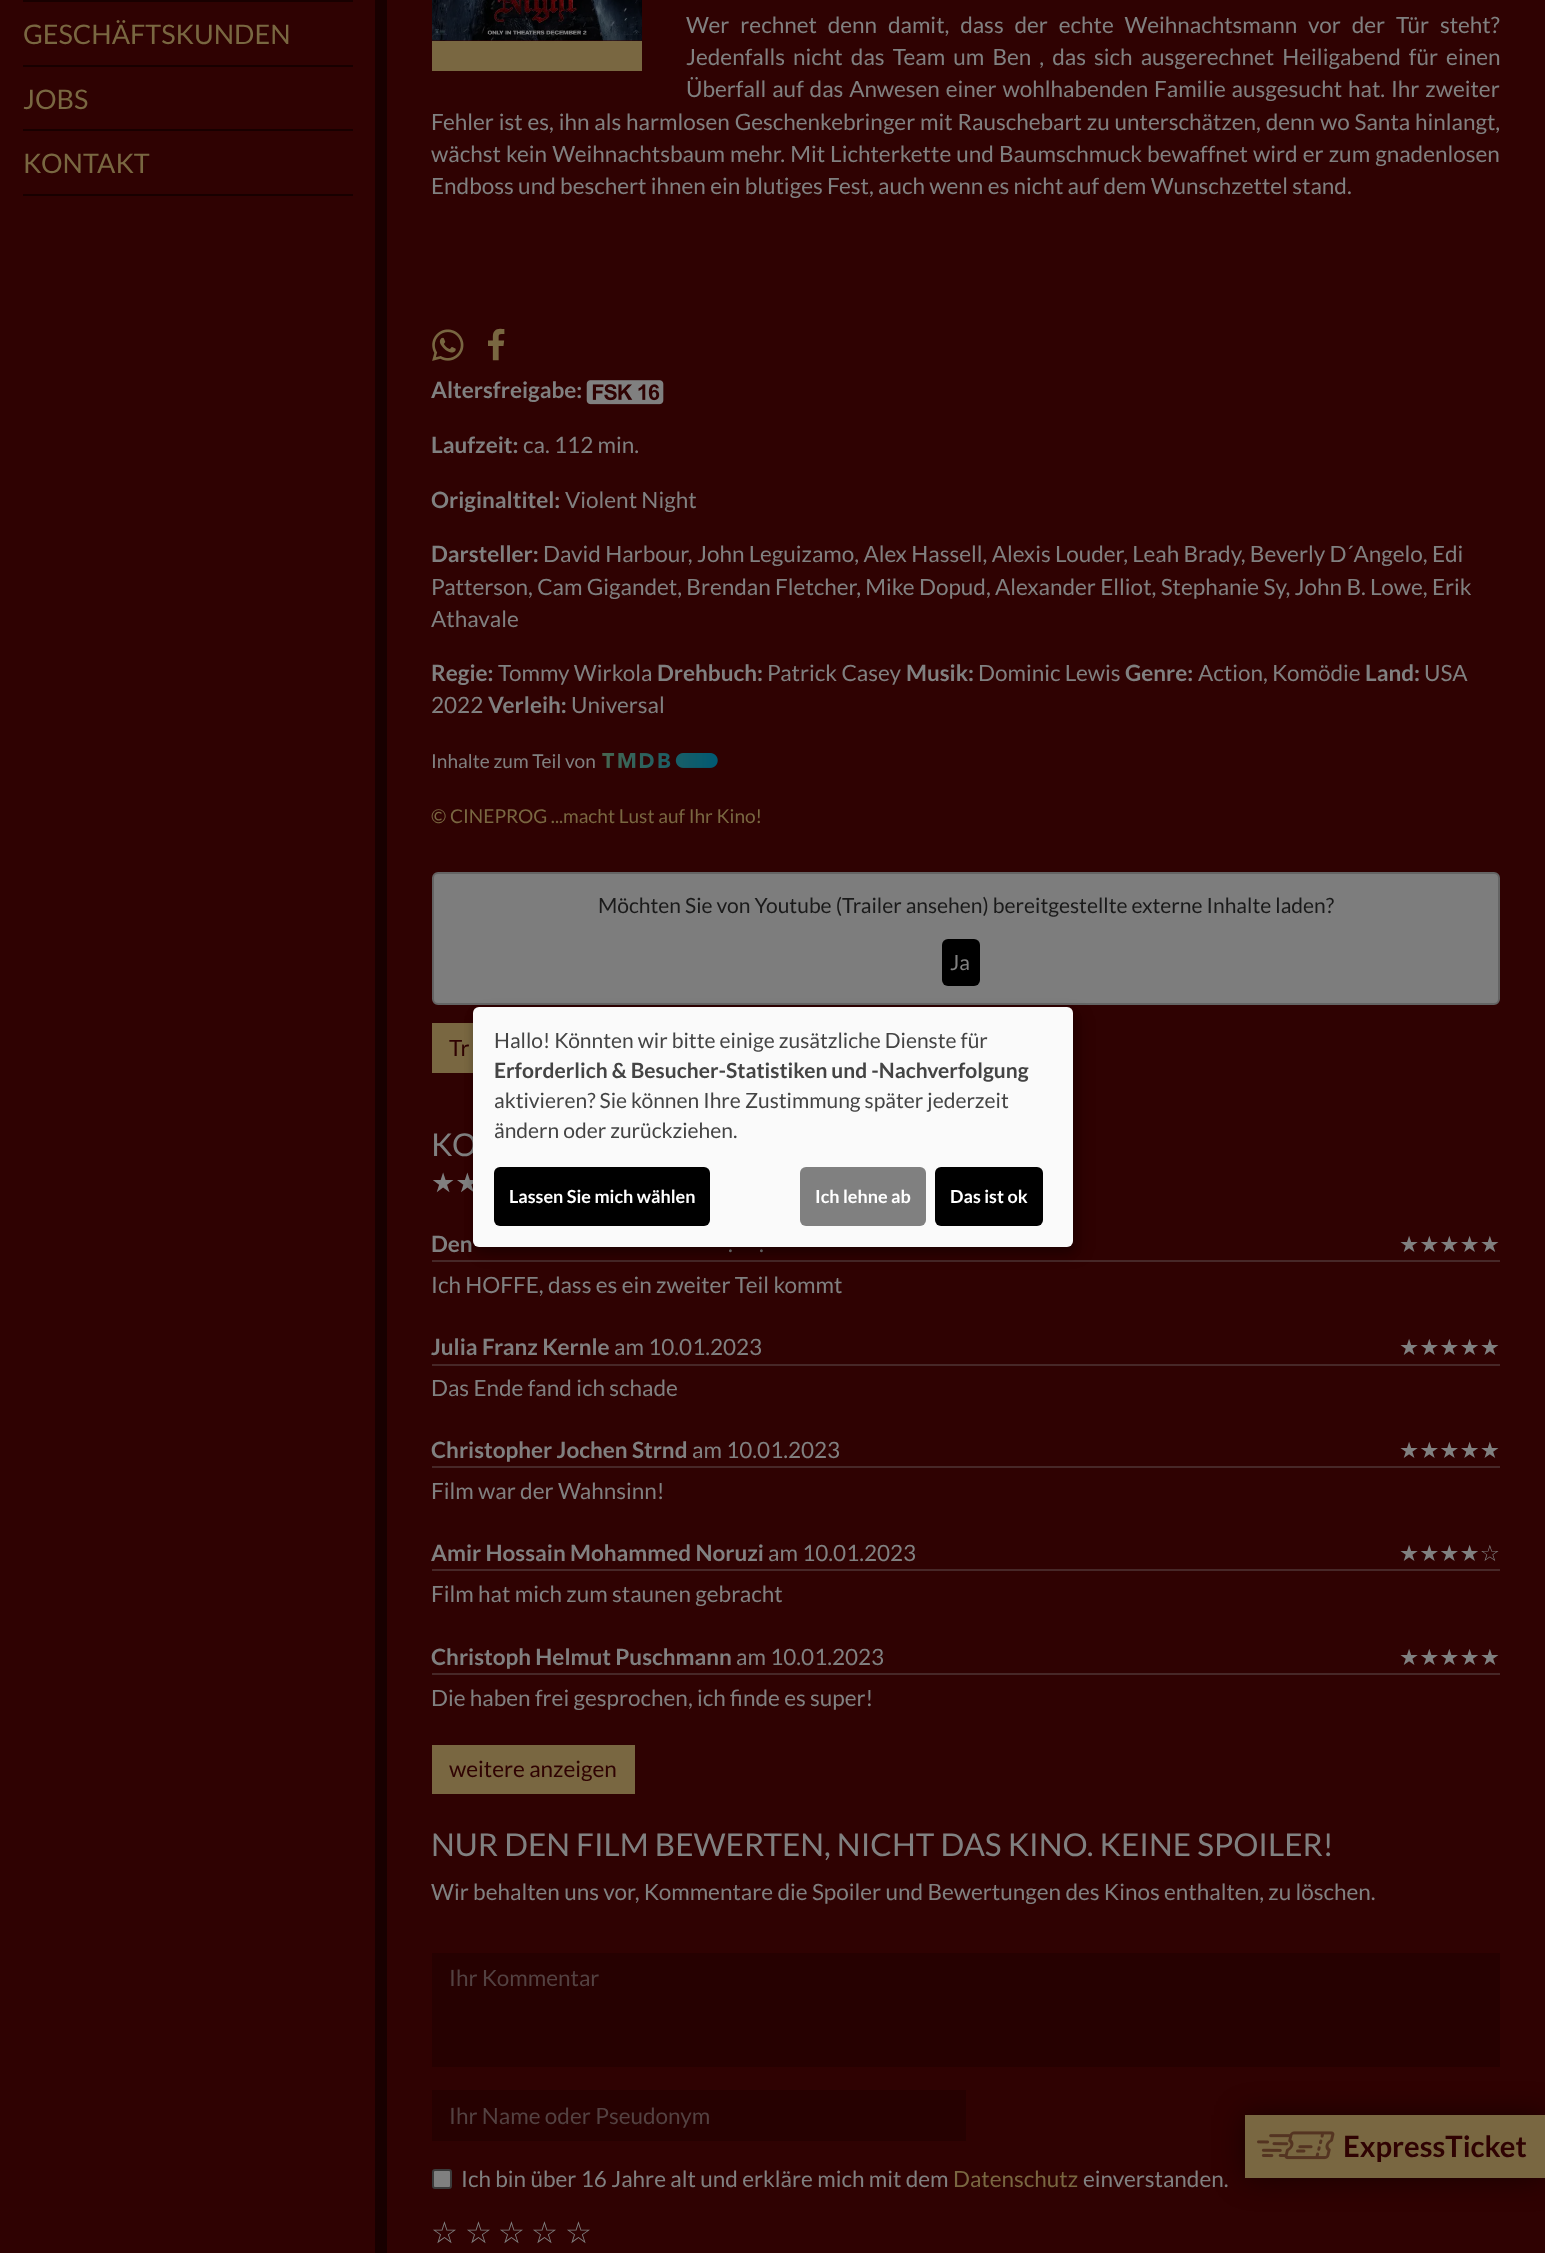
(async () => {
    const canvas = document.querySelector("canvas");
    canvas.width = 1545;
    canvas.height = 2253;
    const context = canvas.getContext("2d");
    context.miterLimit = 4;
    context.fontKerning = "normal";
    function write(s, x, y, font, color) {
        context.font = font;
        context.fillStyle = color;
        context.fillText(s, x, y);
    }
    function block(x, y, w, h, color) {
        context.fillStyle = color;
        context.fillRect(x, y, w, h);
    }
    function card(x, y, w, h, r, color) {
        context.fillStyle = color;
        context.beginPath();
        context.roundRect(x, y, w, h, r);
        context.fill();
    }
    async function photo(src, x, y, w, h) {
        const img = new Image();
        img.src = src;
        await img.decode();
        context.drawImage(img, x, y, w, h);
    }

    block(0, 0, 1545, 2253, "rgb(47, 2, 2)");
    block(375, 0, 12, 2253, "rgb(24, 0, 0)");
    block(23, 0, 330, 2, "rgb(24, 0, 0)");
    block(23, 65, 330, 2, "rgb(24, 0, 0)");
    write("GESCHÄFTSKUNDEN", 23, 44, "27px Lato", "rgb(121, 103, 65)");
    block(23, 129, 330, 2, "rgb(24, 0, 0)");
    write("JOBS", 23, 109, "27px Lato", "rgb(121, 103, 65)");
    block(23, 194, 330, 2, "rgb(24, 0, 0)");
    write("KONTAKT", 23, 173, "27px Lato", "rgb(121, 103, 65)");
    await photo("media/1.png", 432, 0, 210, 41);
    block(432, 41, 210, 30, "rgb(121, 103, 65)");
    context.wordSpacing = "6.5px";
    write("Wer rechnet denn damit, dass der echte Weihnachtsmann vor der Tür steht?", 686, 33, "22.5px Lato", "rgb(128, 128, 128)");
    context.wordSpacing = "3.75px";
    write("Jedenfalls nicht das Team um Ben , das sich ausgerechnet Heiligabend für einen", 686, 65, "22.5px Lato", "rgb(128, 128, 128)");
    context.wordSpacing = "1.5px";
    write("Überfall auf das Anwesen einer wohlhabenden Familie ausgesucht hat. Ihr zweiter", 686, 97, "22.5px Lato", "rgb(128, 128, 128)");
    context.wordSpacing = "0.5px";
    write("Fehler ist es, ihn als harmlosen Geschenkebringer mit Rauschebart zu unterschätzen, denn wo Santa hinlangt,", 431, 130, "22.5px Lato", "rgb(128, 128, 128)");
    context.wordSpacing = "0.75px";
    write("wächst kein Weihnachtsbaum mehr. Mit Lichterkette und Baumschmuck bewaffnet wird er zum gnadenlosen", 431, 162, "22.5px Lato", "rgb(128, 128, 128)");
    context.wordSpacing = "0px";
    write("Endboss und beschert ihnen ein blutiges Fest, auch wenn es nicht auf dem Wunschzettel stand.", 431, 194, "22.5px Lato", "rgb(128, 128, 128)");
    await photo("media/2.png", 432, 329, 32, 32);
    write(":", 488, 356, "31.5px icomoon", "rgb(121, 103, 65)");
    write("Altersfreigabe:", 431, 398, "bold 22.5px Lato", "rgb(128, 128, 128)");
    await photo("media/3.png", 586, 380, 78, 25);
    write("Laufzeit:", 431, 453, "bold 22.5px Lato", "rgb(128, 128, 128)");
    write("ca. 112 min.", 523, 453, "22.5px Lato", "rgb(128, 128, 128)");
    write("Originaltitel:", 431, 508, "bold 22.5px Lato", "rgb(128, 128, 128)");
    write("Violent Night", 565, 508, "22.5px Lato", "rgb(128, 128, 128)");
    write("Darsteller:", 431, 562, "bold 22.5px Lato", "rgb(128, 128, 128)");
    write("David Harbour, John Leguizamo, Alex Hassell, Alexis Louder, Leah Brady, Beverly D´Angelo, Edi", 543, 562, "22.5px Lato", "rgb(128, 128, 128)");
    write("Patterson, Cam Gigandet, Brendan Fletcher, Mike Dopud, Alexander Elliot, Stephanie Sy, John B. Lowe, Erik", 431, 595, "22.5px Lato", "rgb(128, 128, 128)");
    write("Athavale", 431, 627, "22.5px Lato", "rgb(128, 128, 128)");
    write("Regie:", 431, 681, "bold 22.5px Lato", "rgb(128, 128, 128)");
    write("Tommy Wirkola", 498, 681, "22.5px Lato", "rgb(128, 128, 128)");
    write("Drehbuch:", 657, 681, "bold 22.5px Lato", "rgb(128, 128, 128)");
    write("Patrick Casey", 767, 681, "22.5px Lato", "rgb(128, 128, 128)");
    write("Musik:", 906, 681, "bold 22.5px Lato", "rgb(128, 128, 128)");
    write("Dominic Lewis", 978, 681, "22.5px Lato", "rgb(128, 128, 128)");
    write("Genre:", 1125, 681, "bold 22.5px Lato", "rgb(128, 128, 128)");
    write("Action, Komödie", 1198, 681, "22.5px Lato", "rgb(128, 128, 128)");
    write("Land:", 1365, 681, "bold 22.5px Lato", "rgb(128, 128, 128)");
    write("USA", 1424, 681, "22.5px Lato", "rgb(128, 128, 128)");
    write("2022", 431, 713, "22.5px Lato", "rgb(128, 128, 128)");
    write("Verleih:", 488, 713, "bold 22.5px Lato", "rgb(128, 128, 128)");
    write("Universal", 571, 713, "22.5px Lato", "rgb(128, 128, 128)");
    write("Inhalte zum Teil von", 431, 768, "19.1px Lato", "rgb(128, 128, 128)");
    await photo("media/4.png", 602, 753, 116, 15);
    write("© CINEPROG ...macht Lust auf Ihr Kino!", 431, 823, "19.1px Lato", "rgb(121, 103, 65)");
    context.fillStyle = "rgb(125, 125, 125)";
    context.beginPath();
    context.roundRect(433, 873, 1066, 131, 5);
    context.fill();
    context.strokeStyle = "rgb(100, 100, 100)";
    context.lineWidth = 2;
    context.stroke();
    write("Möchten Sie von Youtube (Trailer ansehen) bereitgestellte externe Inhalte laden?", 598, 913, "21px Lato", "rgb(26, 26, 26)");
    card(942, 939, 38, 47, 6, "rgb(0, 0, 0)");
    write("Ja", 950, 970, "21px Lato", "rgb(128, 128, 128)");
    block(432, 1023, 41, 50, "rgb(121, 103, 65)");
    write("Tr", 449, 1056, "22.5px Lato", "rgb(47, 2, 2)");
    write("KO", 431, 1156, "31.5px Lato", "rgb(128, 128, 128)");
    write("★★", 431, 1192, "27px DejaVu Sans", "rgb(128, 128, 128)");
    block(432, 1260, 1068, 2, "rgb(71, 40, 40)");
    write("Den", 431, 1252, "bold 22.5px Lato", "rgb(128, 128, 128)");
    write(".", 728, 1252, "22.5px Lato", "rgb(128, 128, 128)");
    write(".", 759, 1252, "22.5px Lato", "rgb(128, 128, 128)");
    write("★★★★★", 1399, 1252, "22.5px DejaVu Sans", "rgb(128, 128, 128)");
    write("Ich HOFFE, dass es ein zweiter Teil kommt", 431, 1293, "22.5px Lato", "rgb(128, 128, 128)");
    block(432, 1364, 1068, 2, "rgb(71, 40, 40)");
    write("Julia Franz Kernle", 431, 1355, "bold 22.5px Lato", "rgb(128, 128, 128)");
    write("am 10.01.2023", 614, 1355, "22.5px Lato", "rgb(128, 128, 128)");
    write("★★★★★", 1399, 1355, "22.5px DejaVu Sans", "rgb(128, 128, 128)");
    write("Das Ende fand ich schade", 431, 1396, "22.5px Lato", "rgb(128, 128, 128)");
    block(432, 1466, 1068, 2, "rgb(71, 40, 40)");
    write("Christopher Jochen Strnd", 431, 1458, "bold 22.5px Lato", "rgb(128, 128, 128)");
    write("am 10.01.2023", 692, 1458, "22.5px Lato", "rgb(128, 128, 128)");
    write("★★★★★", 1399, 1458, "22.5px DejaVu Sans", "rgb(128, 128, 128)");
    write("Film war der Wahnsinn!", 431, 1499, "22.5px Lato", "rgb(128, 128, 128)");
    block(432, 1569, 1068, 2, "rgb(71, 40, 40)");
    write("Amir Hossain Mohammed Noruzi", 431, 1561, "bold 22.5px Lato", "rgb(128, 128, 128)");
    write("am 10.01.2023", 768, 1561, "22.5px Lato", "rgb(128, 128, 128)");
    write("★★★★☆", 1399, 1561, "22.5px DejaVu Sans", "rgb(128, 128, 128)");
    write("Film hat mich zum staunen gebracht", 431, 1602, "22.5px Lato", "rgb(128, 128, 128)");
    block(432, 1673, 1068, 2, "rgb(71, 40, 40)");
    write("Christoph Helmut Puschmann", 431, 1665, "bold 22.5px Lato", "rgb(128, 128, 128)");
    write("am 10.01.2023", 736, 1665, "22.5px Lato", "rgb(128, 128, 128)");
    write("★★★★★", 1399, 1665, "22.5px DejaVu Sans", "rgb(128, 128, 128)");
    write("Die haben frei gesprochen, ich finde es super!", 431, 1706, "22.5px Lato", "rgb(128, 128, 128)");
    block(432, 1745, 203, 49, "rgb(121, 103, 65)");
    write("weitere anzeigen", 449, 1777, "22.5px Lato", "rgb(47, 2, 2)");
    write("NUR DEN FILM BEWERTEN, NICHT DAS KINO. KEINE SPOILER!", 431, 1856, "31.5px Lato", "rgb(128, 128, 128)");
    write("Wir behalten uns vor, Kommentare die Spoiler und Bewertungen des Kinos enthalten, zu löschen.", 431, 1900, "22.5px Lato", "rgb(128, 128, 128)");
    block(432, 1953, 1068, 114, "rgb(38, 1, 1)");
    write("Ihr Kommentar", 449, 1986, "22.5px Lato", "rgb(83, 65, 65)");
    block(432, 2090, 534, 51, "rgb(38, 1, 1)");
    write("Ihr Name oder Pseudonym", 449, 2124, "22.5px Lato", "rgb(83, 65, 65)");
    context.fillStyle = "rgb(128, 128, 128)";
    context.beginPath();
    context.roundRect(433, 2170, 18, 18, 2);
    context.fill();
    context.strokeStyle = "rgb(59, 59, 59)";
    context.stroke();
    write("Ich bin über 16 Jahre alt und erkläre mich mit dem", 461, 2187, "22.5px Lato", "rgb(128, 128, 128)");
    write("Datenschutz", 953, 2187, "22.5px Lato", "rgb(121, 103, 65)");
    write("einverstanden.", 1083, 2187, "22.5px Lato", "rgb(128, 128, 128)");
    write("☆", 431, 2243, "30px DejaVu Sans", "rgb(128, 128, 128)");
    write("☆", 465, 2243, "30px DejaVu Sans", "rgb(128, 128, 128)");
    write("☆", 498, 2243, "30px DejaVu Sans", "rgb(128, 128, 128)");
    write("☆", 531, 2243, "30px DejaVu Sans", "rgb(128, 128, 128)");
    write("☆", 565, 2243, "30px DejaVu Sans", "rgb(128, 128, 128)");
    context.fillStyle = "rgba(0, 0, 0, 0.19)";
    context.filter = "blur(7.5px)";
    context.beginPath();
    context.roundRect(480, 1014, 600, 240, 6);
    context.fill();
    context.filter = "none";
    context.fillStyle = "rgba(0, 0, 0, 0.2)";
    context.filter = "blur(4.5px)";
    context.beginPath();
    context.roundRect(473, 1013, 600, 240, 6);
    context.fill();
    context.filter = "none";
    card(473, 1007, 600, 240, 6, "rgb(250, 250, 250)");
    write("Hallo! Könnten wir bitte einige zusätzliche Dienste für", 494, 1048, "21px Lato", "rgb(68, 68, 68)");
    write("Erforderlich & Besucher-Statistiken und -Nachverfolgung", 494, 1078, "bold 21px Lato", "rgb(68, 68, 68)");
    write("aktivieren? Sie können Ihre Zustimmung später jederzeit", 494, 1108, "21px Lato", "rgb(68, 68, 68)");
    write("ändern oder zurückziehen.", 494, 1138, "21px Lato", "rgb(68, 68, 68)");
    card(494, 1167, 216, 59, 6, "rgb(0, 0, 0)");
    write("Lassen Sie mich wählen", 509, 1203, "bold 18px Lato", "rgb(255, 255, 255)");
    card(800, 1167, 126, 59, 6, "rgb(128, 128, 128)");
    write("Ich lehne ab", 815, 1203, "bold 18px Lato", "rgb(255, 255, 255)");
    card(935, 1167, 108, 59, 6, "rgb(0, 0, 0)");
    write("Das ist ok", 950, 1203, "bold 18px Lato", "rgb(255, 255, 255)");
    context.fillStyle = "rgba(0, 0, 0, 0.5)";
    context.filter = "blur(15px)";
    context.beginPath();
    context.rect(1245, 2115, 300, 63);
    context.fill();
    context.filter = "none";
    block(1245, 2115, 300, 63, "rgb(121, 103, 65)");
    await photo("media/5.png", 1257, 2131, 78, 29);
    write("ExpressTicket", 1343, 2157, "bold 29.25px Lato", "rgb(47, 2, 2)");
})();
